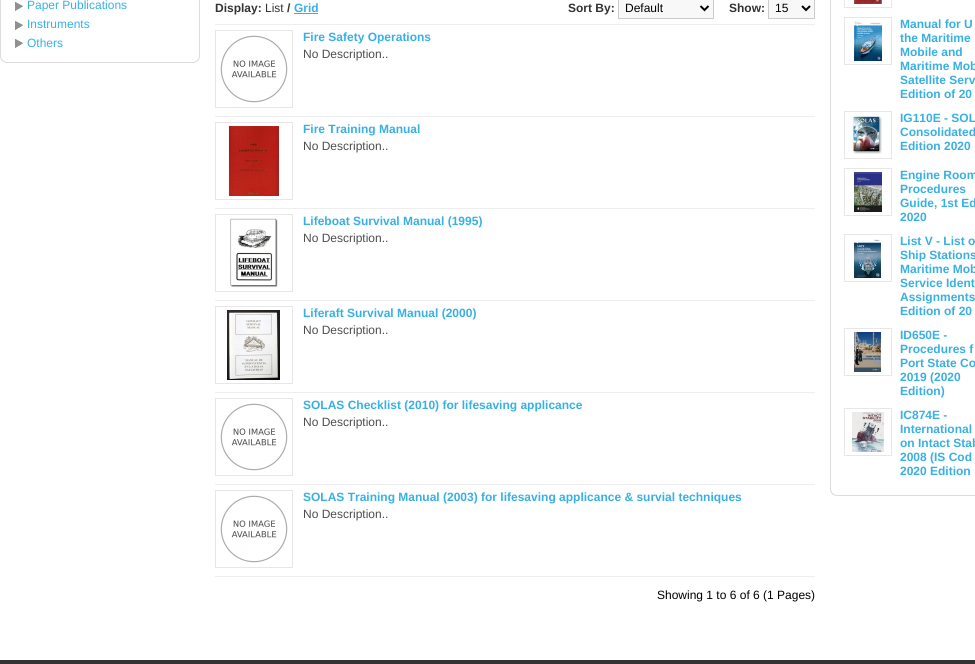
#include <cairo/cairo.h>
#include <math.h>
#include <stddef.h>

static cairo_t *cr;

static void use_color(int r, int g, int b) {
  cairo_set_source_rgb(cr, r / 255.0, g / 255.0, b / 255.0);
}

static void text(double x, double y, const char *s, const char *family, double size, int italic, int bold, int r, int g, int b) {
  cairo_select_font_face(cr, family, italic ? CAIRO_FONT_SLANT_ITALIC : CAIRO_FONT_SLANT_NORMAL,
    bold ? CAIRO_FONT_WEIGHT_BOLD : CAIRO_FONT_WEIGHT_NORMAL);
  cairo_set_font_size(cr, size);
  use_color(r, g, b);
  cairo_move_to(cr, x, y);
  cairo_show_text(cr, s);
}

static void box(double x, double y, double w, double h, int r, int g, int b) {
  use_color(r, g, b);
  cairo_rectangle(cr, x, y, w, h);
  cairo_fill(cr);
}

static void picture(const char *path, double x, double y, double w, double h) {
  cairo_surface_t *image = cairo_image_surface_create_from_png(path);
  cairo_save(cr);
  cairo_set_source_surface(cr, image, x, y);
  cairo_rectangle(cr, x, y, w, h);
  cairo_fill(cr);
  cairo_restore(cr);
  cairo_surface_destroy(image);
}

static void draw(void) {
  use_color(255, 255, 255);
  cairo_paint(cr);
  use_color(219, 222, 225);
  cairo_set_fill_rule(cr, CAIRO_FILL_RULE_EVEN_ODD);
  cairo_new_path(cr);
  cairo_move_to(cr, 0, -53);
  cairo_line_to(cr, 200, -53);
  cairo_line_to(cr, 200, 56);
  cairo_curve_to(cr, 200, 60, 197, 63, 193, 63);
  cairo_line_to(cr, 7, 63);
  cairo_curve_to(cr, 3, 63, 0, 60, 0, 56);
  cairo_close_path(cr);
  cairo_move_to(cr, 1, -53);
  cairo_line_to(cr, 199, -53);
  cairo_line_to(cr, 199, 56);
  cairo_curve_to(cr, 199, 59, 196, 62, 193, 62);
  cairo_line_to(cr, 7, 62);
  cairo_curve_to(cr, 4, 62, 1, 59, 1, 56);
  cairo_close_path(cr);
  cairo_fill(cr);
  picture("img_01.png", 15, 2, 8, 9);
  picture("img_01.png", 15, 21, 8, 9);
  picture("img_02.png", 15, 39, 8, 9);
  box(215, 24, 600, 1, 238, 238, 238);
  box(294, 13, 24, 1, 56, 176, 227);
  use_color(248, 248, 248);
  cairo_rectangle(cr, 618.5, -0.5, 95, 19);
  cairo_fill_preserve(cr);
  use_color(204, 204, 204);
  cairo_set_line_width(cr, 1);
  cairo_stroke(cr);
  cairo_new_path(cr);
  cairo_move_to(cr, 700.5, 6);
  cairo_line_to(cr, 704.5, 10);
  cairo_line_to(cr, 708.5, 6);
  use_color(0, 0, 0);
  cairo_set_line_width(cr, 2);
  cairo_stroke(cr);
  use_color(248, 248, 248);
  cairo_rectangle(cr, 768.5, -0.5, 46, 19);
  cairo_fill_preserve(cr);
  use_color(204, 204, 204);
  cairo_set_line_width(cr, 1);
  cairo_stroke(cr);
  cairo_new_path(cr);
  cairo_move_to(cr, 802, 6);
  cairo_line_to(cr, 806, 10);
  cairo_line_to(cr, 810, 6);
  use_color(0, 0, 0);
  cairo_set_line_width(cr, 2);
  cairo_stroke(cr);
  cairo_rectangle(cr, 215.5, 30.5, 77, 77);
  use_color(231, 231, 231);
  cairo_set_line_width(cr, 1);
  cairo_stroke(cr);
  picture("img_03.png", 220, 35, 68, 68);
  box(215, 116, 600, 1, 238, 238, 238);
  cairo_rectangle(cr, 215.5, 122.5, 77, 77);
  use_color(231, 231, 231);
  cairo_stroke(cr);
  picture("img_04.png", 228, 126, 52, 70);
  box(215, 208, 600, 1, 238, 238, 238);
  cairo_rectangle(cr, 215.5, 214.5, 77, 77);
  use_color(231, 231, 231);
  cairo_stroke(cr);
  picture("img_05.png", 230, 218, 48, 70);
  box(215, 300, 600, 1, 238, 238, 238);
  cairo_rectangle(cr, 215.5, 306.5, 77, 77);
  use_color(231, 231, 231);
  cairo_stroke(cr);
  picture("img_06.png", 227, 310, 53, 70);
  box(215, 392, 600, 1, 238, 238, 238);
  cairo_rectangle(cr, 215.5, 398.5, 77, 77);
  use_color(231, 231, 231);
  cairo_stroke(cr);
  picture("img_03.png", 220, 403, 68, 68);
  box(215, 484, 600, 1, 238, 238, 238);
  cairo_rectangle(cr, 215.5, 490.5, 77, 77);
  use_color(231, 231, 231);
  cairo_stroke(cr);
  picture("img_03.png", 220, 495, 68, 68);
  box(215, 576, 600, 1, 238, 238, 238);
  use_color(219, 222, 225);
  cairo_new_path(cr);
  cairo_move_to(cr, 830, -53);
  cairo_line_to(cr, 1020, -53);
  cairo_line_to(cr, 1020, 489);
  cairo_curve_to(cr, 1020, 493, 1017, 496, 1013, 496);
  cairo_line_to(cr, 837, 496);
  cairo_curve_to(cr, 833, 496, 830, 493, 830, 489);
  cairo_close_path(cr);
  cairo_move_to(cr, 831, -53);
  cairo_line_to(cr, 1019, -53);
  cairo_line_to(cr, 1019, 489);
  cairo_curve_to(cr, 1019, 492, 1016, 495, 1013, 495);
  cairo_line_to(cr, 837, 495);
  cairo_curve_to(cr, 834, 495, 831, 492, 831, 489);
  cairo_close_path(cr);
  cairo_fill(cr);
  cairo_rectangle(cr, 844.5, -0.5, 47, 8);
  use_color(231, 231, 231);
  cairo_stroke(cr);
  picture("img_07.png", 853, 0, 29, 4);
  cairo_rectangle(cr, 844.5, 17.5, 47, 47);
  cairo_stroke(cr);
  picture("img_08.png", 854, 21, 28, 40);
  cairo_rectangle(cr, 844.5, 111.5, 47, 47);
  cairo_stroke(cr);
  picture("img_09.png", 852, 115, 30, 39);
  cairo_rectangle(cr, 844.5, 168.5, 47, 47);
  cairo_stroke(cr);
  picture("img_10.png", 853, 172, 30, 40);
  cairo_rectangle(cr, 844.5, 234.5, 47, 47);
  cairo_stroke(cr);
  picture("img_11.png", 853, 239, 30, 39);
  cairo_rectangle(cr, 844.5, 328.5, 47, 47);
  cairo_stroke(cr);
  picture("img_12.png", 853, 332, 30, 40);
  cairo_rectangle(cr, 844.5, 408.5, 47, 47);
  cairo_stroke(cr);
  picture("img_13.png", 851, 412, 34, 40);
  box(0, 660, 975, 4, 51, 51, 51);
  text(27, 9, "Paper Publications", "Liberation Sans", 12, 0, 0, 56, 176, 227);
  text(27, 28, "Instruments", "Liberation Sans", 12, 0, 0, 56, 176, 227);
  text(27, 47, "Others", "Liberation Sans", 12, 0, 0, 56, 176, 227);
  text(215, 12, "Display:", "Liberation Sans", 12, 0, 1, 51, 51, 51);
  text(265, 12, "List", "Liberation Sans", 12, 0, 0, 51, 51, 51);
  text(287, 12, "/", "Liberation Sans", 12, 0, 1, 51, 51, 51);
  text(294, 12, "Grid", "Liberation Sans", 12, 0, 1, 56, 176, 227);
  text(568, 12, "Sort By:", "Liberation Sans", 12, 0, 1, 51, 51, 51);
  text(625, 12, "Default", "Liberation Sans", 12, 0, 0, 0, 0, 0);
  text(729, 12, "Show:", "Liberation Sans", 12, 0, 1, 51, 51, 51);
  text(775, 12, "15", "Liberation Sans", 12, 0, 0, 0, 0, 0);
  text(303, 41, "Fire Safety Operations", "Liberation Sans", 12, 0, 1, 56, 176, 227);
  text(303, 58, "No Description..", "Liberation Sans", 12, 0, 0, 77, 77, 77);
  text(303, 133, "Fire Training Manual", "Liberation Sans", 12, 0, 1, 56, 176, 227);
  text(303, 150, "No Description..", "Liberation Sans", 12, 0, 0, 77, 77, 77);
  text(303, 225, "Lifeboat Survival Manual (1995)", "Liberation Sans", 12, 0, 1, 56, 176, 227);
  text(303, 242, "No Description..", "Liberation Sans", 12, 0, 0, 77, 77, 77);
  text(303, 317, "Liferaft Survival Manual (2000)", "Liberation Sans", 12, 0, 1, 56, 176, 227);
  text(303, 334, "No Description..", "Liberation Sans", 12, 0, 0, 77, 77, 77);
  text(303, 409, "SOLAS Checklist (2010) for lifesaving applicance", "Liberation Sans", 12, 0, 1, 56, 176, 227);
  text(303, 426, "No Description..", "Liberation Sans", 12, 0, 0, 77, 77, 77);
  text(303, 501, "SOLAS Training Manual (2003) for lifesaving applicance & survial techniques", "Liberation Sans", 12, 0, 1, 56, 176, 227);
  text(303, 518, "No Description..", "Liberation Sans", 12, 0, 0, 77, 77, 77);
  text(657, 599, "Showing 1 to 6 of 6 (1 Pages)", "Liberation Sans", 12, 0, 0, 0, 0, 0);
  text(900, 28, "Manual for U", "Liberation Sans", 12, 0, 1, 56, 176, 227);
  text(900, 42, "the Maritime", "Liberation Sans", 12, 0, 1, 56, 176, 227);
  text(900, 56, "Mobile and", "Liberation Sans", 12, 0, 1, 56, 176, 227);
  text(900, 70, "Maritime Mob", "Liberation Sans", 12, 0, 1, 56, 176, 227);
  text(900, 84, "Satellite Serv", "Liberation Sans", 12, 0, 1, 56, 176, 227);
  text(900, 98, "Edition of 20", "Liberation Sans", 12, 0, 1, 56, 176, 227);
  text(900, 122, "IG110E - SOL", "Liberation Sans", 12, 0, 1, 56, 176, 227);
  text(900, 136, "Consolidated", "Liberation Sans", 12, 0, 1, 56, 176, 227);
  text(900, 150, "Edition 2020", "Liberation Sans", 12, 0, 1, 56, 176, 227);
  text(900, 179, "Engine Room", "Liberation Sans", 12, 0, 1, 56, 176, 227);
  text(900, 193, "Procedures", "Liberation Sans", 12, 0, 1, 56, 176, 227);
  text(900, 207, "Guide, 1st Ed", "Liberation Sans", 12, 0, 1, 56, 176, 227);
  text(900, 221, "2020", "Liberation Sans", 12, 0, 1, 56, 176, 227);
  text(900, 245, "List V - List o", "Liberation Sans", 12, 0, 1, 56, 176, 227);
  text(900, 259, "Ship Stations", "Liberation Sans", 12, 0, 1, 56, 176, 227);
  text(900, 273, "Maritime Mob", "Liberation Sans", 12, 0, 1, 56, 176, 227);
  text(900, 287, "Service Ident", "Liberation Sans", 12, 0, 1, 56, 176, 227);
  text(900, 301, "Assignments", "Liberation Sans", 12, 0, 1, 56, 176, 227);
  text(900, 315, "Edition of 20", "Liberation Sans", 12, 0, 1, 56, 176, 227);
  text(900, 339, "ID650E -", "Liberation Sans", 12, 0, 1, 56, 176, 227);
  text(900, 353, "Procedures f", "Liberation Sans", 12, 0, 1, 56, 176, 227);
  text(900, 367, "Port State Co", "Liberation Sans", 12, 0, 1, 56, 176, 227);
  text(900, 381, "2019 (2020", "Liberation Sans", 12, 0, 1, 56, 176, 227);
  text(900, 395, "Edition)", "Liberation Sans", 12, 0, 1, 56, 176, 227);
  text(900, 419, "IC874E -", "Liberation Sans", 12, 0, 1, 56, 176, 227);
  text(900, 433, "International", "Liberation Sans", 12, 0, 1, 56, 176, 227);
  text(900, 447, "on Intact Stab", "Liberation Sans", 12, 0, 1, 56, 176, 227);
  text(900, 461, "2008 (IS Cod", "Liberation Sans", 12, 0, 1, 56, 176, 227);
  text(900, 475, "2020 Edition", "Liberation Sans", 12, 0, 1, 56, 176, 227);
}

int main(void) {
  cairo_surface_t *surface = cairo_image_surface_create(CAIRO_FORMAT_RGB24, 975, 664);
  cr = cairo_create(surface);
  cairo_font_options_t *options = cairo_font_options_create();
  cairo_font_options_set_hint_metrics(options, CAIRO_HINT_METRICS_OFF);
  cairo_font_options_set_hint_style(options, CAIRO_HINT_STYLE_NONE);
  cairo_set_font_options(cr, options);
  cairo_set_miter_limit(cr, 4);
  draw();
  cairo_surface_write_to_png(surface, "out.png");
  cairo_font_options_destroy(options);
  cairo_destroy(cr);
  cairo_surface_destroy(surface);
  return 0;
}
